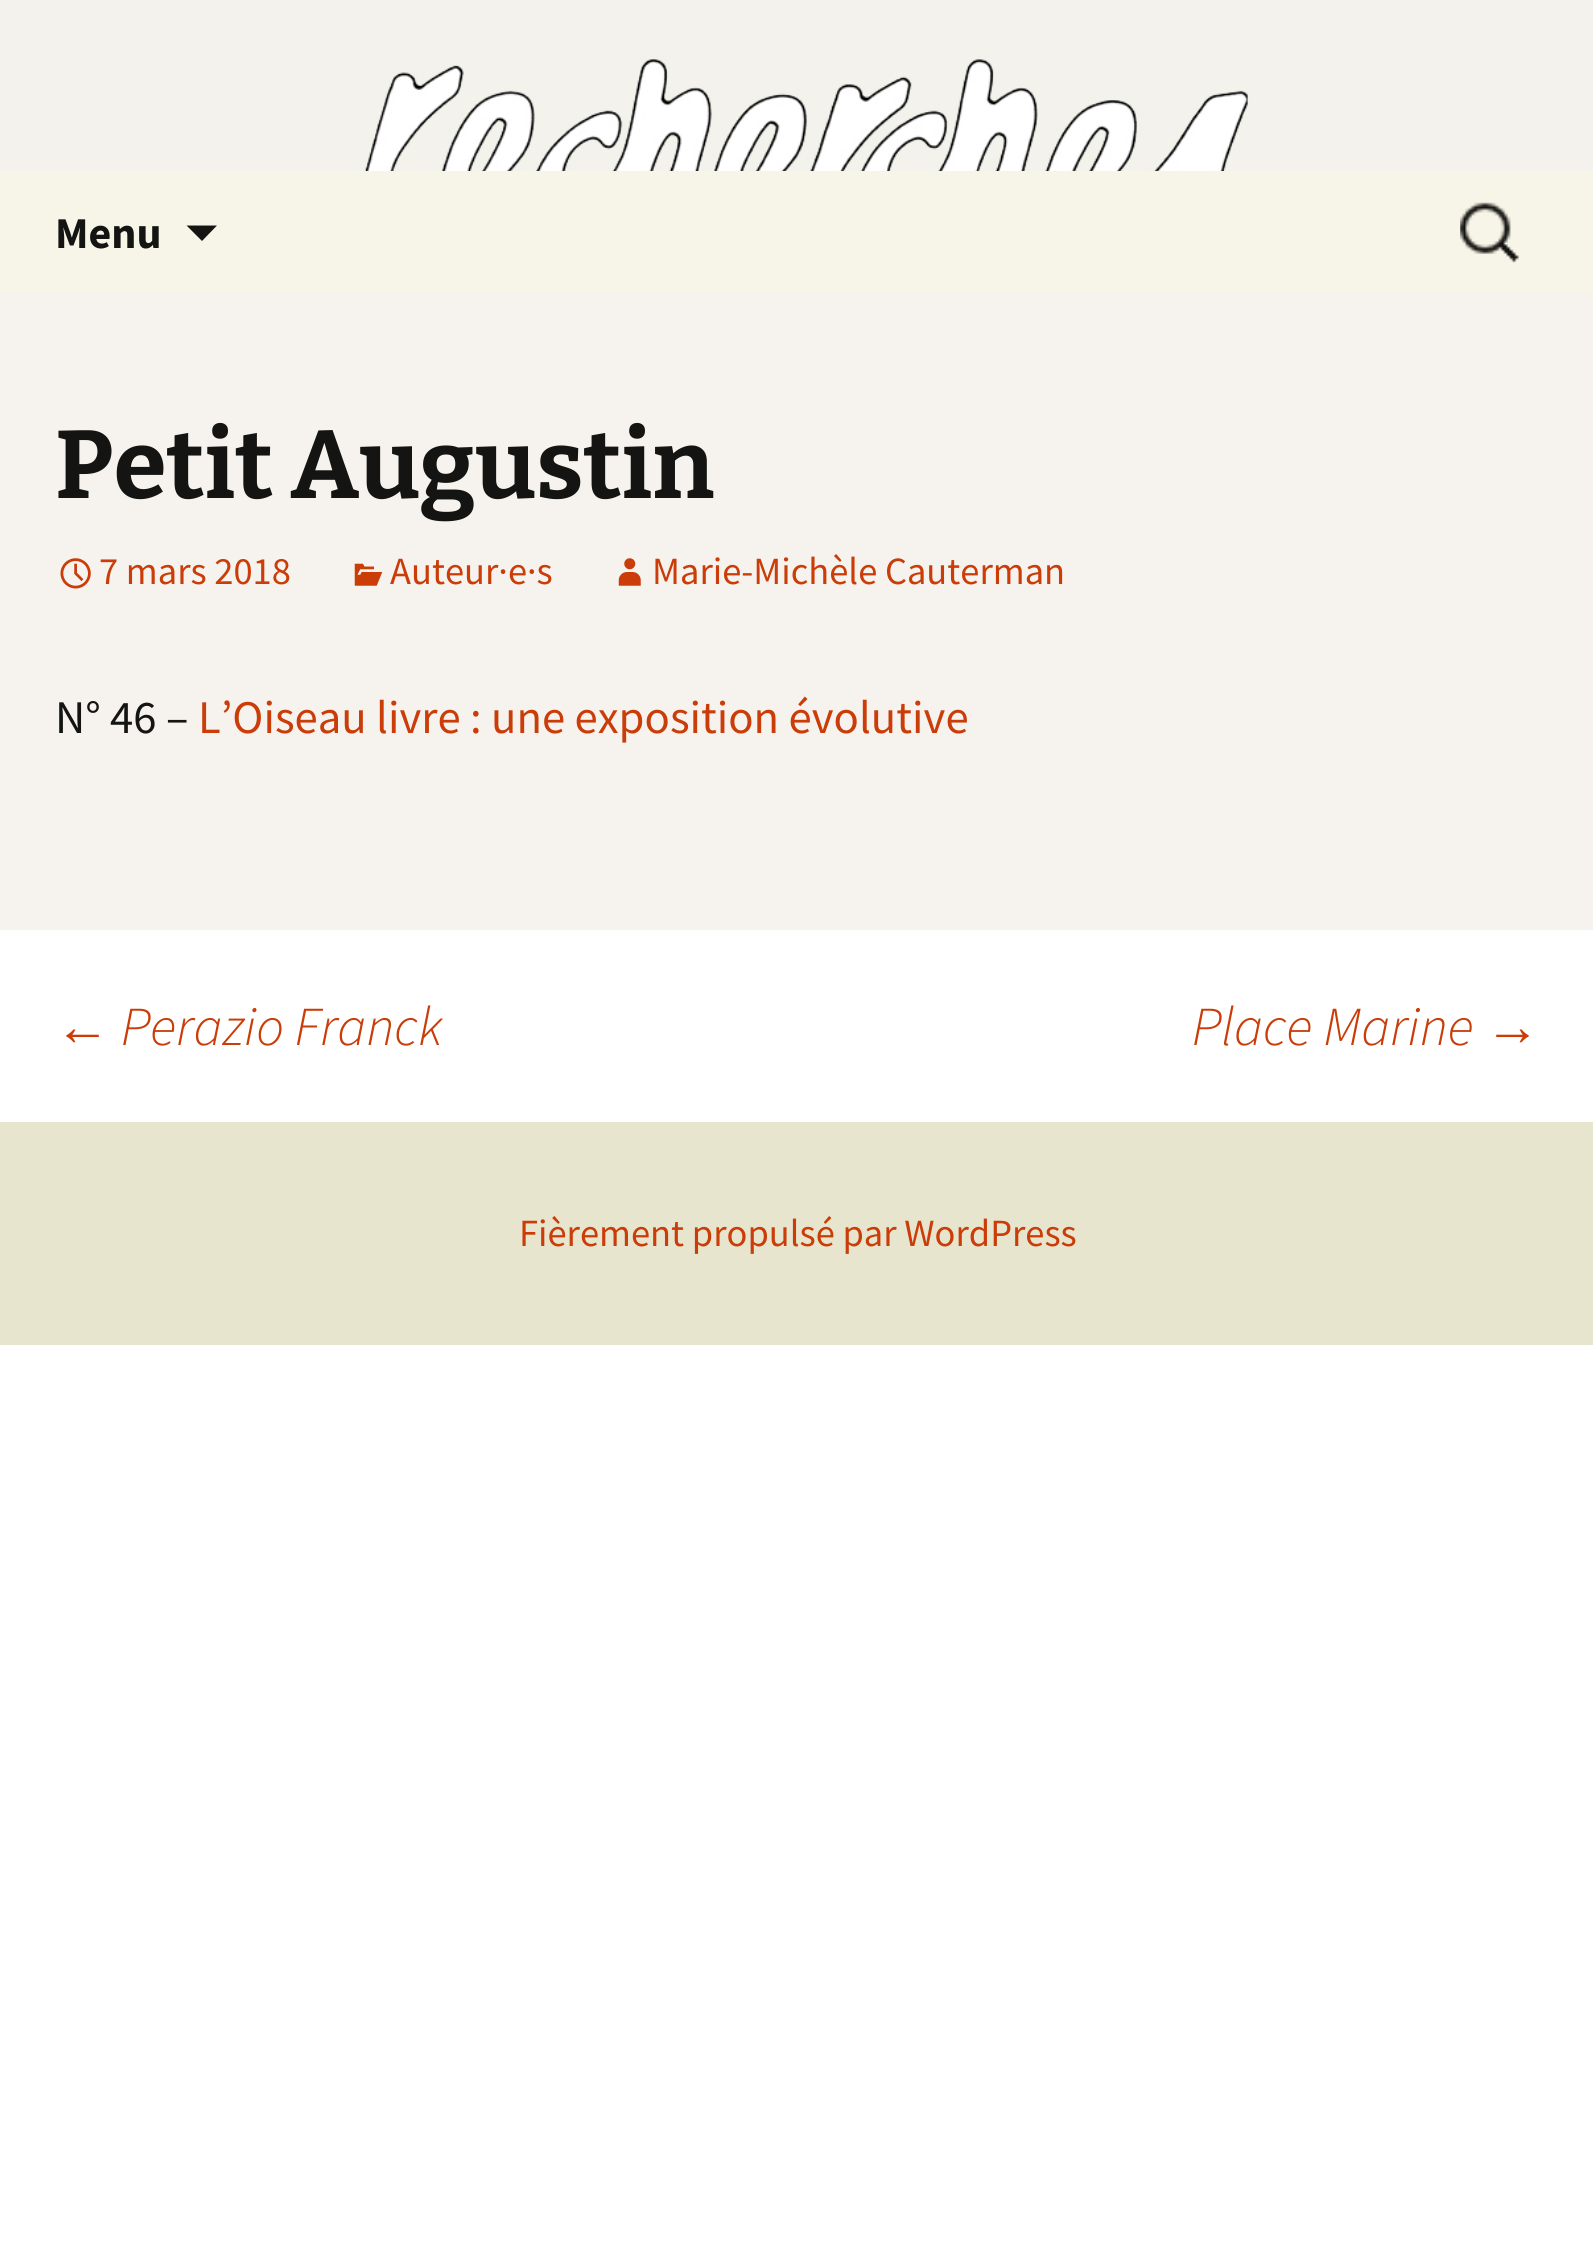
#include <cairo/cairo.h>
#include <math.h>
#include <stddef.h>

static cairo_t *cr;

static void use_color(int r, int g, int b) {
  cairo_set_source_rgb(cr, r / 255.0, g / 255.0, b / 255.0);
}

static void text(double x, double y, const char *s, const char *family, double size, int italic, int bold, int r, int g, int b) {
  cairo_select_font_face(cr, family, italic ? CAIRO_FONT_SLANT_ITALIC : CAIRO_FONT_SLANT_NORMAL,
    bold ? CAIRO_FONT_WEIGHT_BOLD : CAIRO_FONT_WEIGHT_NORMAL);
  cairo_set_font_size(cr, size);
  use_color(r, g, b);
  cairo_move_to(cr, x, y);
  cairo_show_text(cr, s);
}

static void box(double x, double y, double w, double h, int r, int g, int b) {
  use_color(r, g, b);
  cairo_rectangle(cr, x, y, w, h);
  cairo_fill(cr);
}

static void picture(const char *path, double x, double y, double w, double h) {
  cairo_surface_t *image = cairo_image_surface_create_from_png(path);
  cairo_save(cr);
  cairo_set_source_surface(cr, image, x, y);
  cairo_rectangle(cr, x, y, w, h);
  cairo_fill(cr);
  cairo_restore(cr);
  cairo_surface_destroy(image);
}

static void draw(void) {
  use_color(255, 255, 255);
  cairo_paint(cr);
  picture("img_01.png", 0, 0, 1593, 171);
  box(0, 171, 1593, 123, 247, 245, 231);
  use_color(20, 20, 18);
  cairo_new_path(cr);
  cairo_move_to(cr, 186.5, 225.5);
  cairo_line_to(cr, 202, 241);
  cairo_line_to(cr, 217, 225.5);
  cairo_close_path(cr);
  cairo_fill(cr);
  picture("img_02.png", 1460, 202, 59, 61);
  box(0, 294, 1593, 636, 246, 243, 238);
  picture("img_03.png", 60, 558, 31, 31);
  picture("img_04.png", 354, 563, 29, 23);
  picture("img_05.png", 618, 558, 23, 28);
  box(0, 1122, 1593, 223, 232, 229, 206);
  text(55, 248, "Menu", "Source Sans Pro", 44, 0, 1, 20, 20, 18);
  text(55, 498, "Petit Augustin", "Bitter", 96.25, 0, 1, 20, 20, 18);
  text(99, 584, "7 mars 2018", "Source Sans Pro", 38.5, 0, 0, 202, 60, 8);
  text(390, 584, "Auteur·e·s", "Source Sans Pro", 38.5, 0, 0, 202, 60, 8);
  text(652, 584, "Marie-Michèle Cauterman", "Source Sans Pro", 38.5, 0, 0, 202, 60, 8);
  text(55, 733, "N° 46 –", "Source Sans Pro", 46.75, 0, 0, 20, 20, 18);
  text(198, 733, "L’Oiseau livre : une exposition évolutive", "Source Sans Pro", 46.75, 0, 0, 202, 60, 8);
  text(55, 1045, "←", "Liberation Sans", 55, 1, 0, 202, 60, 8);
  text(121, 1045, "Perazio Franck", "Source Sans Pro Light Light", 55, 1, 0, 202, 60, 8);
  text(1192, 1045, "Place Marine", "Source Sans Pro Light Light", 55, 1, 0, 202, 60, 8);
  text(1485, 1045, "→", "Liberation Sans", 55, 1, 0, 202, 60, 8);
  text(519, 1246, "Fièrement propulsé par WordPress", "Source Sans Pro", 38.5, 0, 0, 202, 60, 8);
}

int main(void) {
  cairo_surface_t *surface = cairo_image_surface_create(CAIRO_FORMAT_RGB24, 1593, 2251);
  cr = cairo_create(surface);
  cairo_font_options_t *options = cairo_font_options_create();
  cairo_font_options_set_hint_metrics(options, CAIRO_HINT_METRICS_OFF);
  cairo_font_options_set_hint_style(options, CAIRO_HINT_STYLE_NONE);
  cairo_set_font_options(cr, options);
  cairo_set_miter_limit(cr, 4);
  draw();
  cairo_surface_write_to_png(surface, "out.png");
  cairo_font_options_destroy(options);
  cairo_destroy(cr);
  cairo_surface_destroy(surface);
  return 0;
}
